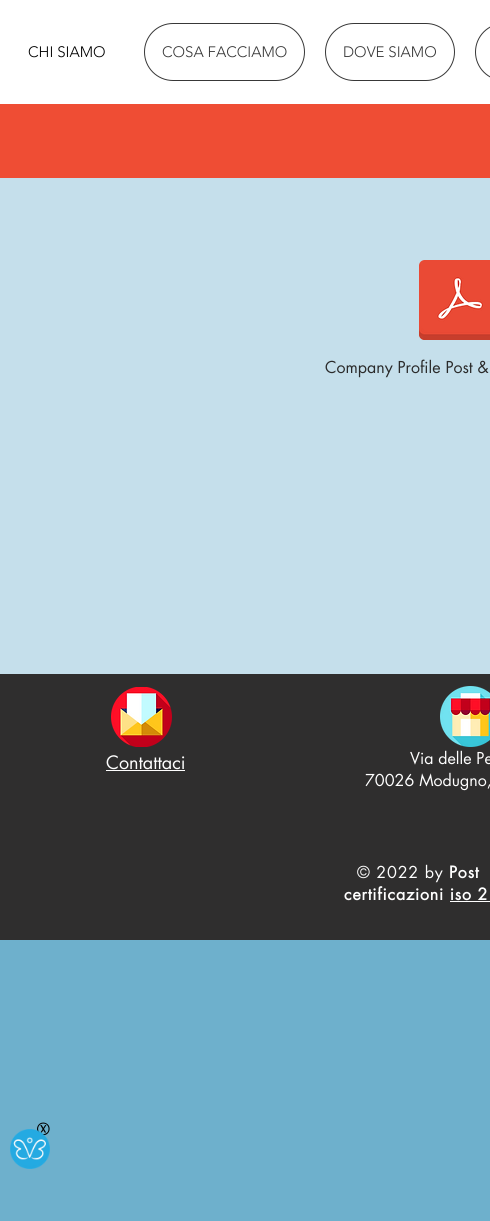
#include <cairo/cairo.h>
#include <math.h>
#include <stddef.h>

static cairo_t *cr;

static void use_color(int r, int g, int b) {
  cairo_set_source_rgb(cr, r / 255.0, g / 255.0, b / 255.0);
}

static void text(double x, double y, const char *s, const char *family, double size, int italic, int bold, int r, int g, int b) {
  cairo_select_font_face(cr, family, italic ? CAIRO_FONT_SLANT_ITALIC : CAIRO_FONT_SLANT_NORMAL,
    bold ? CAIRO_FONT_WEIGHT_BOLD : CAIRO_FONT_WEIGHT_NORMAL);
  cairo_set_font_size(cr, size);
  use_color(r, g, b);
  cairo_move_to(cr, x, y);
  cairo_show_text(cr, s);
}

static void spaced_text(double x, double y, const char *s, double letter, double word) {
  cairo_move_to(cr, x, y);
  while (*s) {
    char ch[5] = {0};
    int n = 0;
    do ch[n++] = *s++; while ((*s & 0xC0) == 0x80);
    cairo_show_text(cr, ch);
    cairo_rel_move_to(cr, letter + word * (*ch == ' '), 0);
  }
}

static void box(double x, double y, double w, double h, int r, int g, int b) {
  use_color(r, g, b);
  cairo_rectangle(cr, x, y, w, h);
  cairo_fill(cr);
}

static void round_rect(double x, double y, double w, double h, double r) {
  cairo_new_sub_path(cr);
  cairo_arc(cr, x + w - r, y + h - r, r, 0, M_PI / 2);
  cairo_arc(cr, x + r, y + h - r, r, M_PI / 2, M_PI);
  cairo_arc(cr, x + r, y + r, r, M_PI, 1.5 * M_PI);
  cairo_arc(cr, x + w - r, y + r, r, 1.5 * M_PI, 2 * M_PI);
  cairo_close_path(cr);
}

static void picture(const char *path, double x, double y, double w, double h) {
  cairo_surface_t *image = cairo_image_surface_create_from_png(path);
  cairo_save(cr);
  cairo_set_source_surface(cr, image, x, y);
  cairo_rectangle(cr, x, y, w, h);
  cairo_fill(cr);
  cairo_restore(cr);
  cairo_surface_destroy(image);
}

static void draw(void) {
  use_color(110, 176, 204);
  cairo_paint(cr);
  box(0, 0, 490, 104, 255, 255, 255);
  round_rect(144.5, 23.5, 160, 57, 28.5);
  use_color(56, 56, 56);
  cairo_set_line_width(cr, 1);
  cairo_stroke(cr);
  round_rect(325.5, 23.5, 129, 57, 28.5);
  cairo_stroke(cr);
  round_rect(475.5, 23.5, 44, 57, 28.5);
  cairo_stroke(cr);
  box(0, 104, 490, 74, 239, 77, 52);
  box(0, 178, 490, 496, 197, 223, 235);
  picture("img_01.png", 419, 260, 71, 80);
  box(0, 674, 490, 266, 47, 46, 46);
  picture("img_02.png", 111, 687, 61, 60);
  picture("img_03.png", 440, 686, 50, 61);
  box(106, 770, 79, 1, 255, 255, 255);
  box(450, 901, 40, 1, 255, 255, 255);
  text(28, 57, "CHI SIAMO", "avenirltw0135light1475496 Light", 15, 0, 0, 0, 0, 0);
  text(162, 57, "COSA FACCIAMO", "avenirltw0135light1475496 Light", 15, 0, 0, 56, 56, 56);
  text(343, 57, "DOVE SIAMO", "avenirltw0135light1475496 Light", 15, 0, 0, 56, 56, 56);
  text(325, 373, "Company Profile Post &", "futura", 16, 0, 0, 42, 42, 42);
  text(106, 769, "Contattaci", "futura", 18, 0, 0, 255, 255, 255);
  text(410, 764, "Via delle Pe", "futura", 16, 0, 0, 255, 255, 255);
  text(365, 786, "70026 Modugno,", "futura", 16, 0, 0, 255, 255, 255);
  spaced_text(357, 878, "© 2022 by", 0.8, 0);
  cairo_select_font_face(cr, "futura", CAIRO_FONT_SLANT_NORMAL, CAIRO_FONT_WEIGHT_BOLD);
  spaced_text(449, 878, "Post", 0.8, 0);
  spaced_text(344, 900, "certificazioni iso 2", 0.8, 0);
  cairo_save(cr);
  cairo_translate(cr, 50, 1124);
  cairo_rotate(cr, 180 * M_PI / 180);
  text(0, 0, "Ⓧ", "WenQuanYi Zen Hei", 13, 0, 1, 0, 0, 0);
  cairo_restore(cr);
  picture("img_04.png", 10, 1129, 40, 40);
}

int main(void) {
  cairo_surface_t *surface = cairo_image_surface_create(CAIRO_FORMAT_RGB24, 490, 1221);
  cr = cairo_create(surface);
  cairo_font_options_t *options = cairo_font_options_create();
  cairo_font_options_set_hint_metrics(options, CAIRO_HINT_METRICS_OFF);
  cairo_font_options_set_hint_style(options, CAIRO_HINT_STYLE_NONE);
  cairo_set_font_options(cr, options);
  cairo_set_miter_limit(cr, 4);
  draw();
  cairo_surface_write_to_png(surface, "out.png");
  cairo_font_options_destroy(options);
  cairo_destroy(cr);
  cairo_surface_destroy(surface);
  return 0;
}
